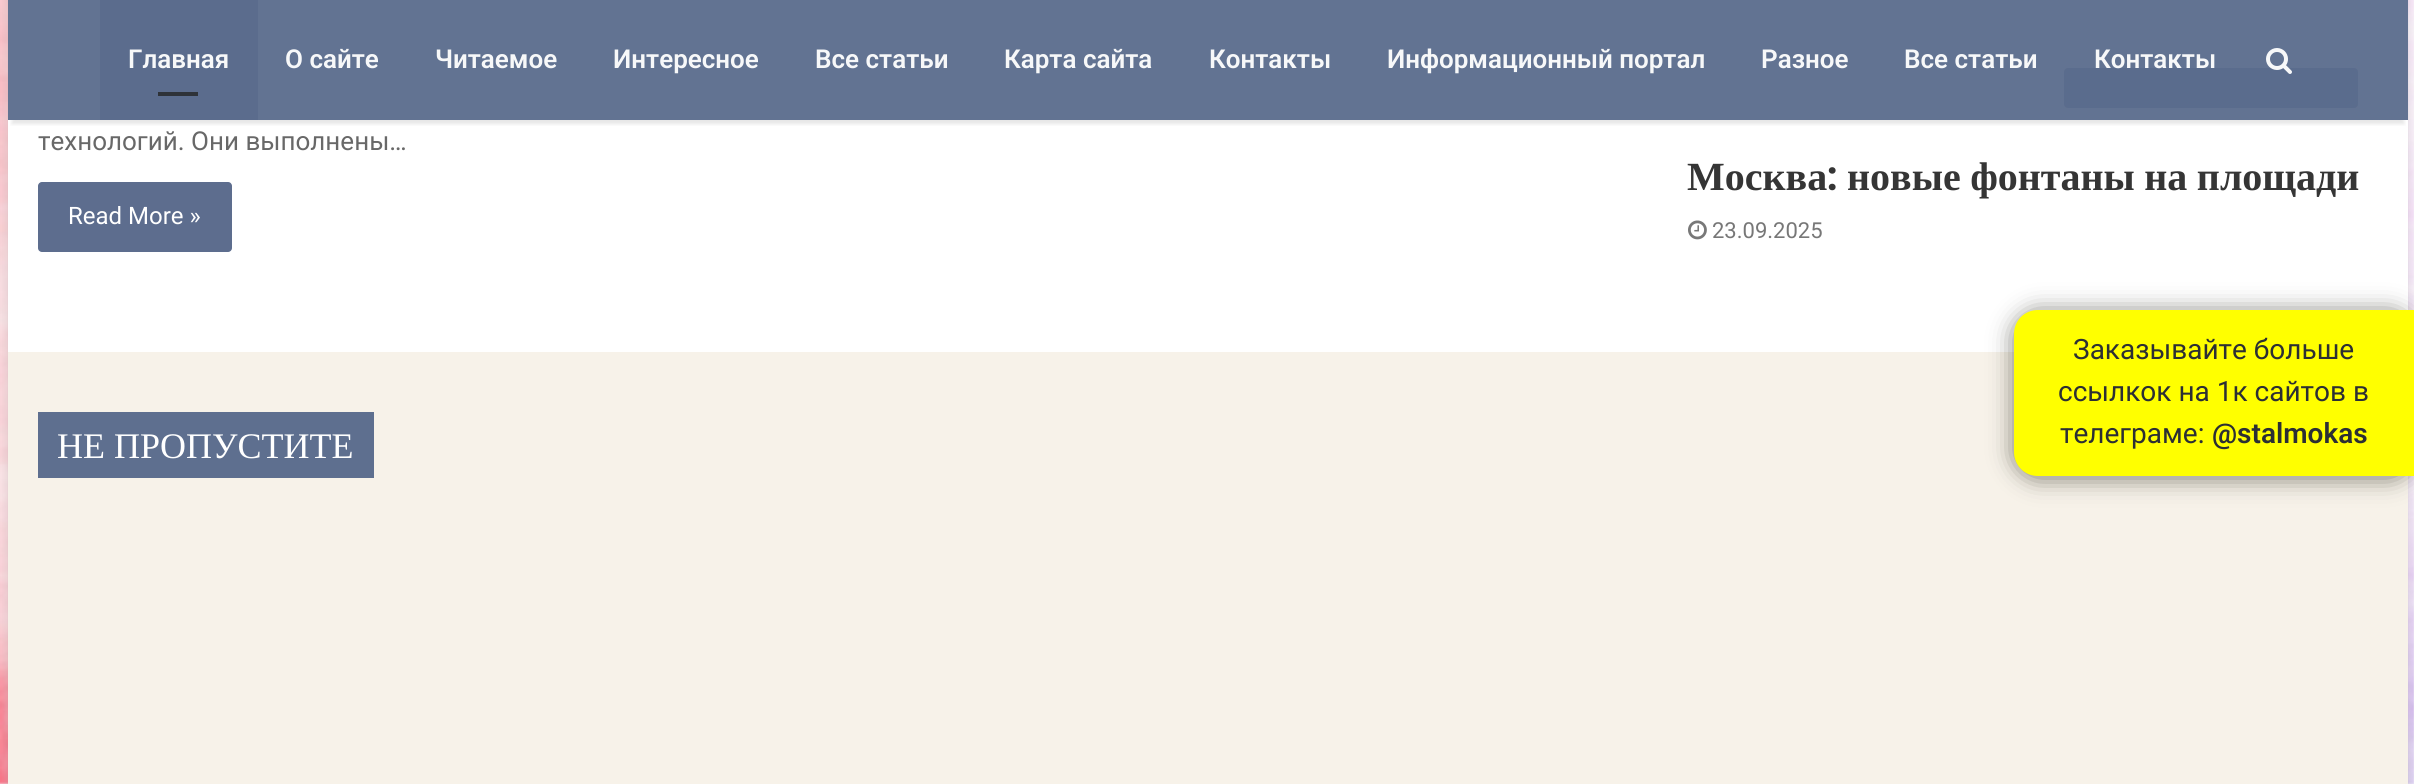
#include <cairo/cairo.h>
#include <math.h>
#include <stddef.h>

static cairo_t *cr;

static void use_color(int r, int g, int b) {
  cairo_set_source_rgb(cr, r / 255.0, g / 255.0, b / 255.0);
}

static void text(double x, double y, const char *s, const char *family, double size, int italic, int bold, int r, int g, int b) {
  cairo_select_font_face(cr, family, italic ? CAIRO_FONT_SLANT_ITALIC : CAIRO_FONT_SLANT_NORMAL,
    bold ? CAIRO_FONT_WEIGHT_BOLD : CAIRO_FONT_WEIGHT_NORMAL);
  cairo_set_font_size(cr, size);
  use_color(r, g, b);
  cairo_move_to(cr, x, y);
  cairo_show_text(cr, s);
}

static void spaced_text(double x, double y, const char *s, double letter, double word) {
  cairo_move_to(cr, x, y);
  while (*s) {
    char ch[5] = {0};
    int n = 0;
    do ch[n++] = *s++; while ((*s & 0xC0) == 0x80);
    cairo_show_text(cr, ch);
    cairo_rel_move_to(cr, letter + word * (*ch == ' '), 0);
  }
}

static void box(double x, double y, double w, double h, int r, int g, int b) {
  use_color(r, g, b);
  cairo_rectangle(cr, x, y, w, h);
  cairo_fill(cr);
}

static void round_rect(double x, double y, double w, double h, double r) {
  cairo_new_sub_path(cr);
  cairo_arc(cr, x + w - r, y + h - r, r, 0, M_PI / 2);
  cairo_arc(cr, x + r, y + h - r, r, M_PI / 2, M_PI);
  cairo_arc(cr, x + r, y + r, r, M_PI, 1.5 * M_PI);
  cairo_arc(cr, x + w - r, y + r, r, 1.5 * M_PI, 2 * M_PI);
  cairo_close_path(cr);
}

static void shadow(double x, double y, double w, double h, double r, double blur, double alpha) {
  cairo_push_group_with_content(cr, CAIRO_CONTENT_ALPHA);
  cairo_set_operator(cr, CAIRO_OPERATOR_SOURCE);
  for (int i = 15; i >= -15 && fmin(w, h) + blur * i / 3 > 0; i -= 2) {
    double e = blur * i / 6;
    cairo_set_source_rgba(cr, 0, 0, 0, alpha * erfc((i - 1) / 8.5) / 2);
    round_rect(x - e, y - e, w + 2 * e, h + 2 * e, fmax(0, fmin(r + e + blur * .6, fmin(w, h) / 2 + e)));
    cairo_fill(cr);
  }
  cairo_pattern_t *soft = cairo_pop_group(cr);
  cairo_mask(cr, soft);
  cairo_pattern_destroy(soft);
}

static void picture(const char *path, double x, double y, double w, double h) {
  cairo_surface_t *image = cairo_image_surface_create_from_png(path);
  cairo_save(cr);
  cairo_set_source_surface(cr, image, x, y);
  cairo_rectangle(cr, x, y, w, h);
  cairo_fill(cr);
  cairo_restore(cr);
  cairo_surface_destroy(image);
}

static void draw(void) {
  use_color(255, 255, 255);
  cairo_paint(cr);
  picture("img_01.png", 0, 0, 2414, 784);
  use_color(171, 171, 171);
  shadow(8, -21, 2400, 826, 0, 7, 0.5);
  box(8, 0, 2400, 352, 255, 255, 255);
  use_color(93, 109, 142);
  round_rect(2064, 68, 294, 40, 4);
  cairo_fill(cr);
  cairo_save(cr);
  cairo_rectangle(cr, 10, 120, 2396, 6);
  cairo_clip(cr);
  use_color(0, 0, 0);
  shadow(12, 12, 2392, 112, 0, 2, 0.1);
  cairo_restore(cr);
  cairo_set_source_rgba(cr, 0.357, 0.424, 0.553, 0.95);
  cairo_rectangle(cr, 8, 0, 2400, 120);
  cairo_fill(cr);
  cairo_rectangle(cr, 100, 0, 158, 120);
  cairo_fill(cr);
  box(158, 92, 40, 4, 46, 50, 56);
  picture("img_02.png", 2266, 48, 26, 26);
  use_color(93, 109, 142);
  round_rect(38, 182, 194, 70, 4);
  cairo_fill(cr);
  picture("img_03.png", 1688, 220, 19, 20);
  box(8, 352, 2400, 432, 247, 242, 233);
  box(38, 412, 336, 66, 94, 111, 143);
  use_color(20, 20, 10);
  shadow(2014, 312, 400, 166, 24, 12, 0.56);
  use_color(255, 255, 0);
  cairo_new_path(cr);
  cairo_move_to(cr, 2038, 310);
  cairo_line_to(cr, 2414, 310);
  cairo_line_to(cr, 2414, 476);
  cairo_line_to(cr, 2038, 476);
  cairo_curve_to(cr, 2024.5, 476, 2014, 465.5, 2014, 452);
  cairo_line_to(cr, 2014, 334);
  cairo_curve_to(cr, 2014, 320.5, 2024.5, 310, 2038, 310);
  cairo_close_path(cr);
  cairo_fill(cr);
  text(128, 68, "Главная", "Roboto SemiBold", 26, 0, 0, 247, 248, 249);
  text(285, 68, "О сайте", "Roboto SemiBold", 26, 0, 0, 247, 248, 249);
  text(435, 68, "Читаемое", "Roboto SemiBold", 26, 0, 0, 247, 248, 249);
  text(613, 68, "Интересное", "Roboto SemiBold", 26, 0, 0, 247, 248, 249);
  text(815, 68, "Все статьи", "Roboto SemiBold", 26, 0, 0, 247, 248, 249);
  text(1004, 68, "Карта сайта", "Roboto SemiBold", 26, 0, 0, 247, 248, 249);
  text(1209, 68, "Контакты", "Roboto SemiBold", 26, 0, 0, 247, 248, 249);
  text(1387, 68, "Информационный портал", "Roboto SemiBold", 26, 0, 0, 247, 248, 249);
  text(1761, 68, "Разное", "Roboto SemiBold", 26, 0, 0, 247, 248, 249);
  text(1904, 68, "Все статьи", "Roboto SemiBold", 26, 0, 0, 247, 248, 249);
  text(2094, 68, "Контакты", "Roboto SemiBold", 26, 0, 0, 247, 248, 249);
  text(38, 150, "технологий. Они выполнены…", "Roboto", 26, 0, 0, 104, 104, 104);
  text(68, 224, "Read More »", "Roboto", 24, 0, 0, 255, 255, 255);
  text(1687, 190, "Москва", "Liberation Serif", 40, 0, 1, 53, 53, 53);
  text(1827, 190, ":", "Poppins SemiBold", 40, 0, 0, 53, 53, 53);
  cairo_select_font_face(cr, "Liberation Serif", CAIRO_FONT_SLANT_NORMAL, CAIRO_FONT_WEIGHT_BOLD);
  spaced_text(1847, 190, "новые фонтаны на площади", 0, -0.5);
  text(1712, 238, "23.09.2025", "Roboto", 22, 0, 0, 119, 119, 119);
  text(57, 458, "НЕ ПРОПУСТИТЕ", "Liberation Serif", 36, 0, 0, 255, 255, 255);
  text(2073, 359, "Заказывайте больше", "Roboto", 28, 0, 0, 44, 47, 52);
  text(2058, 401, "ссылкок на 1к сайтов в", "Roboto", 28, 0, 0, 44, 47, 52);
  text(2060, 443, "телеграме:", "Roboto", 28, 0, 0, 44, 47, 52);
  text(2212, 443, "@stalmokas", "Roboto SemiBold", 28, 0, 0, 44, 47, 52);
}

int main(void) {
  cairo_surface_t *surface = cairo_image_surface_create(CAIRO_FORMAT_RGB24, 2414, 784);
  cr = cairo_create(surface);
  cairo_font_options_t *options = cairo_font_options_create();
  cairo_font_options_set_hint_metrics(options, CAIRO_HINT_METRICS_OFF);
  cairo_font_options_set_hint_style(options, CAIRO_HINT_STYLE_NONE);
  cairo_set_font_options(cr, options);
  cairo_set_miter_limit(cr, 4);
  draw();
  cairo_surface_write_to_png(surface, "out.png");
  cairo_font_options_destroy(options);
  cairo_destroy(cr);
  cairo_surface_destroy(surface);
  return 0;
}
